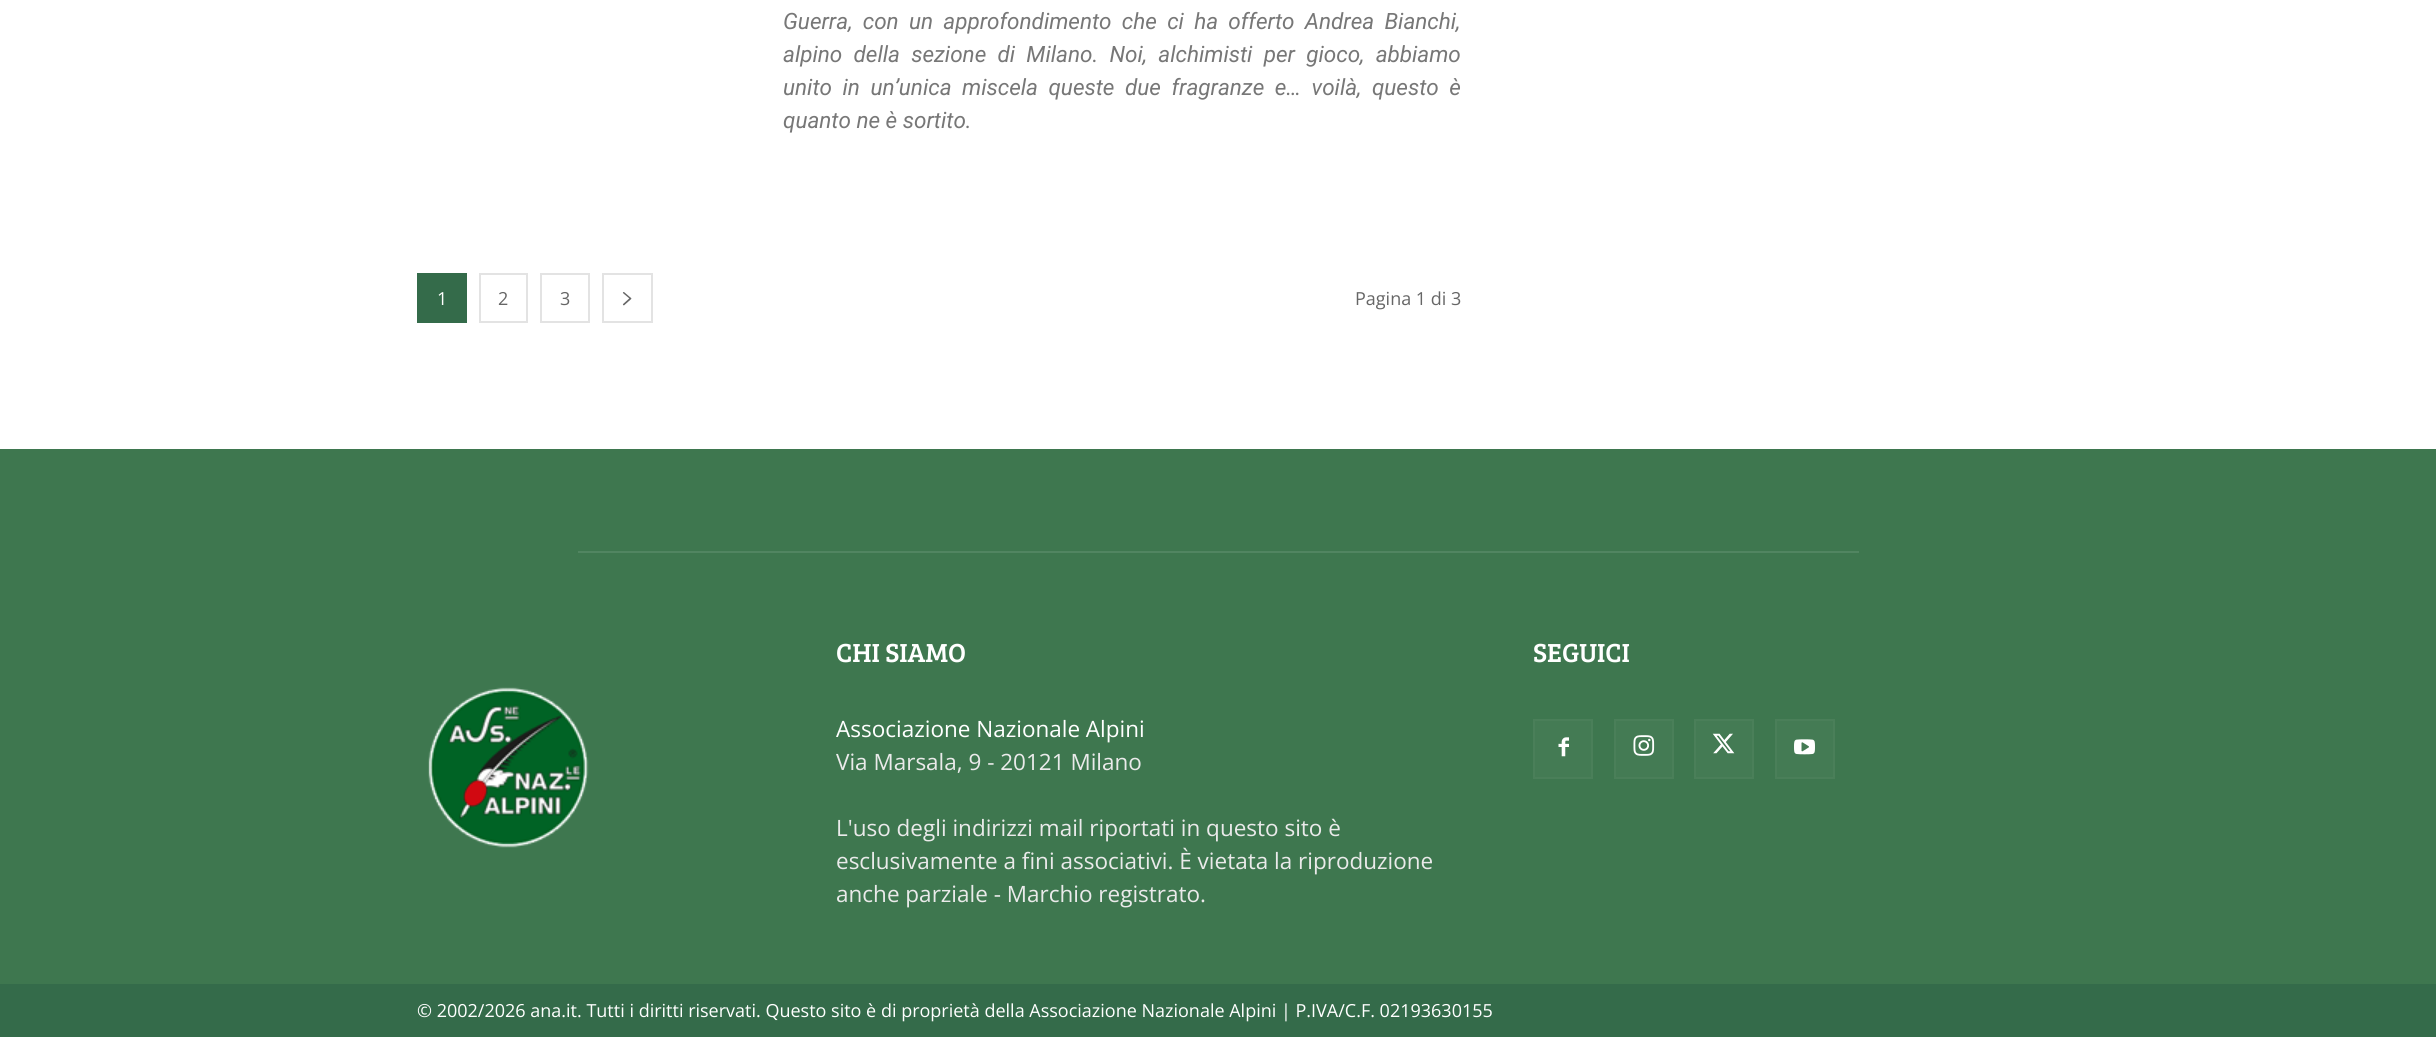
#include <cairo/cairo.h>
#include <math.h>
#include <stddef.h>

static cairo_t *cr;

static void use_color(int r, int g, int b) {
  cairo_set_source_rgb(cr, r / 255.0, g / 255.0, b / 255.0);
}

static void text(double x, double y, const char *s, const char *family, double size, int italic, int bold, int r, int g, int b) {
  cairo_select_font_face(cr, family, italic ? CAIRO_FONT_SLANT_ITALIC : CAIRO_FONT_SLANT_NORMAL,
    bold ? CAIRO_FONT_WEIGHT_BOLD : CAIRO_FONT_WEIGHT_NORMAL);
  cairo_set_font_size(cr, size);
  use_color(r, g, b);
  cairo_move_to(cr, x, y);
  cairo_show_text(cr, s);
}

static void spaced_text(double x, double y, const char *s, double letter, double word) {
  cairo_move_to(cr, x, y);
  while (*s) {
    char ch[5] = {0};
    int n = 0;
    do ch[n++] = *s++; while ((*s & 0xC0) == 0x80);
    cairo_show_text(cr, ch);
    cairo_rel_move_to(cr, letter + word * (*ch == ' '), 0);
  }
}

static void box(double x, double y, double w, double h, int r, int g, int b) {
  use_color(r, g, b);
  cairo_rectangle(cr, x, y, w, h);
  cairo_fill(cr);
}

static void picture(const char *path, double x, double y, double w, double h) {
  cairo_surface_t *image = cairo_image_surface_create_from_png(path);
  cairo_save(cr);
  cairo_set_source_surface(cr, image, x, y);
  cairo_rectangle(cr, x, y, w, h);
  cairo_fill(cr);
  cairo_restore(cr);
  cairo_surface_destroy(image);
}

static void draw(void) {
  use_color(255, 255, 255);
  cairo_paint(cr);
  box(417, 273, 50, 50, 52, 107, 74);
  cairo_rectangle(cr, 480, 274, 47, 48);
  use_color(227, 227, 227);
  cairo_stroke(cr);
  cairo_rectangle(cr, 541, 274, 48, 48);
  cairo_stroke(cr);
  cairo_rectangle(cr, 603, 274, 49, 48);
  cairo_stroke(cr);
  picture("img_01.png", 622, 292, 10, 14);
  box(0, 449, 2436, 535, 62, 119, 79);
  box(578, 551, 1281, 2, 81, 133, 97);
  box(1535, 721, 56, 56, 68, 123, 84);
  picture("img_02.png", 1558, 737, 11, 20);
  cairo_rectangle(cr, 1534, 720, 58, 58);
  use_color(74, 127, 89);
  cairo_stroke(cr);
  box(1616, 721, 56, 56, 68, 123, 84);
  picture("img_03.png", 1633, 735, 22, 21);
  cairo_rectangle(cr, 1615, 720, 58, 58);
  use_color(74, 127, 89);
  cairo_stroke(cr);
  box(1696, 721, 56, 56, 68, 123, 84);
  picture("img_04.png", 1712, 733, 23, 21);
  cairo_rectangle(cr, 1695, 720, 58, 58);
  use_color(74, 127, 89);
  cairo_stroke(cr);
  box(1777, 721, 56, 56, 68, 123, 84);
  picture("img_05.png", 1794, 739, 21, 16);
  cairo_rectangle(cr, 1776, 720, 58, 58);
  use_color(74, 127, 89);
  cairo_stroke(cr);
  picture("img_06.png", 428, 687, 161, 161);
  box(0, 984, 2436, 53, 52, 107, 74);
  cairo_select_font_face(cr, "Roboto", CAIRO_FONT_SLANT_ITALIC, CAIRO_FONT_WEIGHT_NORMAL);
  cairo_set_font_size(cr, 22.5);
  use_color(119, 119, 119);
  spaced_text(783, 29, "Guerra, con un approfondimento che ci ha offerto Andrea Bianchi,", 0, 4.75);
  spaced_text(783, 62, "alpino della sezione di Milano. Noi, alchimisti per gioco, abbiamo", 0, 5.75);
  spaced_text(783, 95, "unito in un’unica miscela queste due fragranze e… voilà, questo è", 0, 5);
  text(783, 128, "quanto ne è sortito.", "Roboto", 22.5, 1, 0, 119, 119, 119);
  text(437, 305, "1", "Open Sans", 18, 0, 0, 255, 255, 255);
  text(498, 305, "2", "Open Sans", 18, 0, 0, 102, 102, 102);
  text(560, 305, "3", "Open Sans", 18, 0, 0, 102, 102, 102);
  text(1355, 305, "Pagina 1 di 3", "Open Sans", 18, 0, 0, 102, 102, 102);
  text(836, 662, "CHI SIAMO", "Bree Serif", 27, 0, 0, 255, 255, 255);
  text(836, 737, "Associazione Nazionale Alpini", "Open Sans", 22.5, 0, 0, 255, 255, 255);
  text(836, 770, "Via Marsala, 9 - 20121 Milano", "Open Sans", 22.5, 0, 0, 234, 234, 234);
  text(836, 836, "L'uso degli indirizzi mail riportati in questo sito è", "Open Sans", 22.5, 0, 0, 234, 234, 234);
  text(836, 869, "esclusivamente a fini associativi. È vietata la riproduzione", "Open Sans", 22.5, 0, 0, 234, 234, 234);
  text(836, 902, "anche parziale - Marchio registrato.", "Open Sans", 22.5, 0, 0, 234, 234, 234);
  text(1533, 662, "SEGUICI", "Bree Serif", 27, 0, 0, 255, 255, 255);
  text(417, 1017, "© 2002/2026 ana.it. Tutti i diritti riservati. Questo sito è di proprietà della Associazione Nazionale Alpini | P.IVA/C.F. 02193630155", "Open Sans", 18, 0, 0, 255, 255, 255);
}

int main(void) {
  cairo_surface_t *surface = cairo_image_surface_create(CAIRO_FORMAT_RGB24, 2436, 1037);
  cr = cairo_create(surface);
  cairo_font_options_t *options = cairo_font_options_create();
  cairo_font_options_set_hint_metrics(options, CAIRO_HINT_METRICS_OFF);
  cairo_font_options_set_hint_style(options, CAIRO_HINT_STYLE_NONE);
  cairo_set_font_options(cr, options);
  cairo_set_miter_limit(cr, 4);
  draw();
  cairo_surface_write_to_png(surface, "out.png");
  cairo_font_options_destroy(options);
  cairo_destroy(cr);
  cairo_surface_destroy(surface);
  return 0;
}
